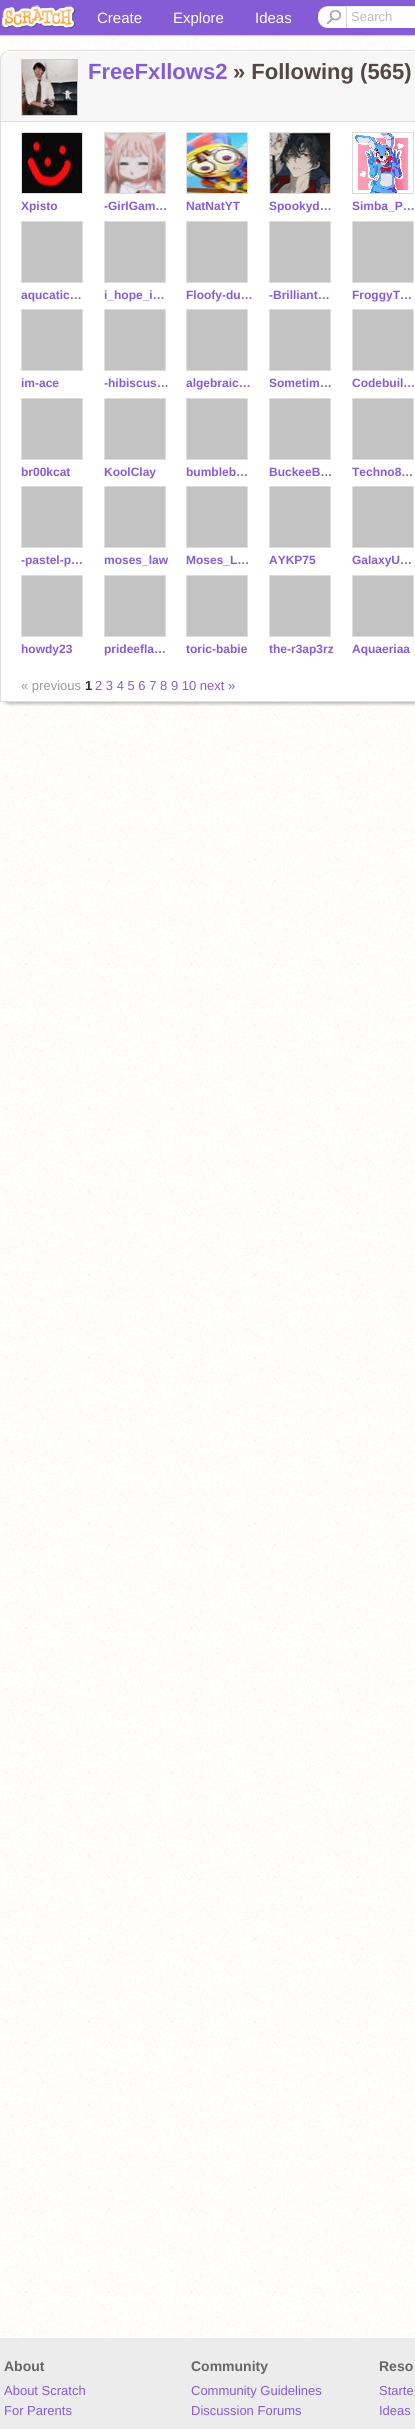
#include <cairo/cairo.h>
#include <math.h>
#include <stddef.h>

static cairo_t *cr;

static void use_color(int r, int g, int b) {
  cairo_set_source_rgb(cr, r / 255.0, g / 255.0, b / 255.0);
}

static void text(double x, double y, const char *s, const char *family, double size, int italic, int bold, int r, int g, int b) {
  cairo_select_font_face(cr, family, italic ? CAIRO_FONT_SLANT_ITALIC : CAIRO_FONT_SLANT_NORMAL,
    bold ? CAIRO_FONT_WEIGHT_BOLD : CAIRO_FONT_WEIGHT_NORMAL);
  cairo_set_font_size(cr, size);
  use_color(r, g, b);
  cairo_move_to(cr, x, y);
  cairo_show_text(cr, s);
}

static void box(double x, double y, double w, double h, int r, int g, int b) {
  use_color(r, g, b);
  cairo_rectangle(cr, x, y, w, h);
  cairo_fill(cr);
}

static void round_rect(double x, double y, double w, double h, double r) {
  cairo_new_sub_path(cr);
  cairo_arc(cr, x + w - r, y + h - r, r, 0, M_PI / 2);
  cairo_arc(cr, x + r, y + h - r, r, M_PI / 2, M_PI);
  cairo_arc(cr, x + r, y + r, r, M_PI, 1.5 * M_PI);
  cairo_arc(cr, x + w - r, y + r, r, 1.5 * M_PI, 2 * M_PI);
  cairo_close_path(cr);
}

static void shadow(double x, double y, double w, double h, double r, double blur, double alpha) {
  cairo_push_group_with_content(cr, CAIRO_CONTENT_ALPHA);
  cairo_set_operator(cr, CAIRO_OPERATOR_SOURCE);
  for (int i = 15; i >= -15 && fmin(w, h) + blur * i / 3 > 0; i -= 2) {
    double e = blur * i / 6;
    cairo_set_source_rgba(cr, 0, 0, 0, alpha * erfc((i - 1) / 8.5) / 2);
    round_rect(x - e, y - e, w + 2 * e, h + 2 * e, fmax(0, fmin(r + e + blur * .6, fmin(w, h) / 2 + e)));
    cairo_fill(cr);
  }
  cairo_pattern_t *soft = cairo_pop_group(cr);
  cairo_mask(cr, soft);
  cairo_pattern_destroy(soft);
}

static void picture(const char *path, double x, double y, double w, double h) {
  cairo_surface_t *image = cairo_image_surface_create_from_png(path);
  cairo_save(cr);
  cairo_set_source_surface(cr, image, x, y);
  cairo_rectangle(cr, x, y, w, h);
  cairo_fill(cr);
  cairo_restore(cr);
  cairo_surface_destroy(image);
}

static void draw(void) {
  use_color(255, 255, 255);
  cairo_paint(cr);
  picture("img_01.png", 0, 35, 415, 2303);
  use_color(204, 204, 204);
  shadow(0, 1, 415, 35, 0, 0.5, 1);
  box(0, 0, 415, 35, 133, 92, 214);
  picture("img_02.png", 2, 5, 74, 25);
  use_color(255, 255, 255);
  round_rect(318, 6, 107, 22, 10);
  cairo_fill(cr);
  cairo_set_source_rgba(cr, 0, 0, 0, 0.07);
  cairo_new_path(cr);
  cairo_move_to(cr, 328, 7);
  cairo_line_to(cr, 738, 7);
  cairo_curve_to(cr, 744, 7, 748, 11, 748, 17);
  cairo_line_to(cr, 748, 16);
  cairo_curve_to(cr, 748, 10, 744, 6, 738, 6);
  cairo_line_to(cr, 328, 6);
  cairo_curve_to(cr, 322, 6, 318, 10, 318, 16);
  cairo_line_to(cr, 318, 17);
  cairo_curve_to(cr, 318, 11, 322, 7, 328, 7);
  cairo_close_path(cr);
  cairo_fill(cr);
  picture("img_03.png", 327, 10, 14, 14);
  cairo_set_source_rgba(cr, 0, 0, 0, 0.06);
  cairo_rectangle(cr, 318, 6, 28, 1);
  cairo_fill(cr);
  cairo_set_source_rgba(cr, 0.8, 0.8, 0.8, 0.8);
  cairo_rectangle(cr, 346, 6, 1, 22);
  cairo_fill(cr);
  use_color(34, 25, 25);
  shadow(0, 52, 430, 652, 10, 1.5, 0.3);
  use_color(247, 247, 247);
  cairo_new_path(cr);
  cairo_move_to(cr, 10, 50.5);
  cairo_line_to(cr, 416, 50.5);
  cairo_curve_to(cr, 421, 50.5, 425.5, 55, 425.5, 60);
  cairo_line_to(cr, 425.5, 701.5);
  cairo_line_to(cr, 0.5, 701.5);
  cairo_line_to(cr, 0.5, 60);
  cairo_curve_to(cr, 0.5, 55, 5, 50.5, 10, 50.5);
  cairo_close_path(cr);
  cairo_fill_preserve(cr);
  use_color(224, 224, 224);
  cairo_set_line_width(cr, 1);
  cairo_stroke(cr);
  box(6, 51, 409, 1, 255, 255, 255);
  cairo_rectangle(cr, 21.5, 59.5, 56, 56);
  use_color(204, 204, 204);
  cairo_stroke(cr);
  picture("img_04.png", 22, 60, 55, 55);
  box(1, 122, 414, 579, 255, 255, 255);
  box(1, 121, 414, 1, 224, 224, 224);
  cairo_rectangle(cr, 21.5, 132.5, 61, 61);
  use_color(221, 221, 221);
  cairo_stroke(cr);
  picture("img_05.png", 22, 133, 60, 60);
  cairo_rectangle(cr, 104.5, 132.5, 61, 61);
  cairo_stroke(cr);
  picture("img_06.png", 105, 133, 60, 60);
  cairo_rectangle(cr, 186.5, 132.5, 61, 61);
  cairo_stroke(cr);
  picture("img_07.png", 187, 133, 60, 60);
  cairo_rectangle(cr, 269.5, 132.5, 61, 61);
  cairo_stroke(cr);
  picture("img_08.png", 270, 133, 60, 60);
  cairo_rectangle(cr, 352.5, 132.5, 61, 61);
  cairo_stroke(cr);
  picture("img_09.png", 355, 133, 54, 60);
  cairo_rectangle(cr, 21.5, 221.5, 61, 61);
  cairo_stroke(cr);
  box(22, 222, 60, 60, 195, 195, 195);
  cairo_rectangle(cr, 104.5, 221.5, 61, 61);
  use_color(221, 221, 221);
  cairo_stroke(cr);
  box(105, 222, 60, 60, 195, 195, 195);
  cairo_rectangle(cr, 186.5, 221.5, 61, 61);
  use_color(221, 221, 221);
  cairo_stroke(cr);
  box(187, 222, 60, 60, 195, 195, 195);
  cairo_rectangle(cr, 269.5, 221.5, 61, 61);
  use_color(221, 221, 221);
  cairo_stroke(cr);
  box(270, 222, 60, 60, 195, 195, 195);
  cairo_rectangle(cr, 352.5, 221.5, 61, 61);
  use_color(221, 221, 221);
  cairo_stroke(cr);
  box(353, 222, 60, 60, 195, 195, 195);
  cairo_rectangle(cr, 21.5, 309.5, 61, 61);
  use_color(221, 221, 221);
  cairo_stroke(cr);
  box(22, 310, 60, 60, 195, 195, 195);
  cairo_rectangle(cr, 104.5, 309.5, 61, 61);
  use_color(221, 221, 221);
  cairo_stroke(cr);
  box(105, 310, 60, 60, 195, 195, 195);
  cairo_rectangle(cr, 186.5, 309.5, 61, 61);
  use_color(221, 221, 221);
  cairo_stroke(cr);
  box(187, 310, 60, 60, 195, 195, 195);
  cairo_rectangle(cr, 269.5, 309.5, 61, 61);
  use_color(221, 221, 221);
  cairo_stroke(cr);
  box(270, 310, 60, 60, 195, 195, 195);
  cairo_rectangle(cr, 352.5, 309.5, 61, 61);
  use_color(221, 221, 221);
  cairo_stroke(cr);
  box(353, 310, 60, 60, 195, 195, 195);
  cairo_rectangle(cr, 21.5, 398.5, 61, 61);
  use_color(221, 221, 221);
  cairo_stroke(cr);
  box(22, 399, 60, 60, 195, 195, 195);
  cairo_rectangle(cr, 104.5, 398.5, 61, 61);
  use_color(221, 221, 221);
  cairo_stroke(cr);
  box(105, 399, 60, 60, 195, 195, 195);
  cairo_rectangle(cr, 186.5, 398.5, 61, 61);
  use_color(221, 221, 221);
  cairo_stroke(cr);
  box(187, 399, 60, 60, 195, 195, 195);
  cairo_rectangle(cr, 269.5, 398.5, 61, 61);
  use_color(221, 221, 221);
  cairo_stroke(cr);
  box(270, 399, 60, 60, 195, 195, 195);
  cairo_rectangle(cr, 352.5, 398.5, 61, 61);
  use_color(221, 221, 221);
  cairo_stroke(cr);
  box(353, 399, 60, 60, 195, 195, 195);
  cairo_rectangle(cr, 21.5, 486.5, 61, 61);
  use_color(221, 221, 221);
  cairo_stroke(cr);
  box(22, 487, 60, 60, 195, 195, 195);
  cairo_rectangle(cr, 104.5, 486.5, 61, 61);
  use_color(221, 221, 221);
  cairo_stroke(cr);
  box(105, 487, 60, 60, 195, 195, 195);
  cairo_rectangle(cr, 186.5, 486.5, 61, 61);
  use_color(221, 221, 221);
  cairo_stroke(cr);
  box(187, 487, 60, 60, 195, 195, 195);
  cairo_rectangle(cr, 269.5, 486.5, 61, 61);
  use_color(221, 221, 221);
  cairo_stroke(cr);
  box(270, 487, 60, 60, 195, 195, 195);
  cairo_rectangle(cr, 352.5, 486.5, 61, 61);
  use_color(221, 221, 221);
  cairo_stroke(cr);
  box(353, 487, 60, 60, 195, 195, 195);
  cairo_rectangle(cr, 21.5, 575.5, 61, 61);
  use_color(221, 221, 221);
  cairo_stroke(cr);
  box(22, 576, 60, 60, 195, 195, 195);
  cairo_rectangle(cr, 104.5, 575.5, 61, 61);
  use_color(221, 221, 221);
  cairo_stroke(cr);
  box(105, 576, 60, 60, 195, 195, 195);
  cairo_rectangle(cr, 186.5, 575.5, 61, 61);
  use_color(221, 221, 221);
  cairo_stroke(cr);
  box(187, 576, 60, 60, 195, 195, 195);
  cairo_rectangle(cr, 269.5, 575.5, 61, 61);
  use_color(221, 221, 221);
  cairo_stroke(cr);
  box(270, 576, 60, 60, 195, 195, 195);
  cairo_rectangle(cr, 352.5, 575.5, 61, 61);
  use_color(221, 221, 221);
  cairo_stroke(cr);
  box(353, 576, 60, 60, 195, 195, 195);
  box(0, 2338, 415, 91, 236, 236, 236);
  text(97, 23, "Create", "Liberation Sans", 15, 0, 0, 255, 255, 255);
  text(173, 23, "Explore", "Liberation Sans", 15, 0, 0, 255, 255, 255);
  text(255, 23, "Ideas", "Liberation Sans", 15, 0, 0, 255, 255, 255);
  text(351, 21, "Search", "Liberation Sans", 13, 0, 0, 187, 187, 187);
  text(88, 79, "FreeFxllows2", "Liberation Sans", 22, 0, 1, 133, 92, 214);
  text(233, 79, "» Following (565)", "Liberation Sans", 22, 0, 1, 85, 71, 71);
  text(21, 210, "Xpisto", "Liberation Sans", 12, 0, 1, 133, 92, 214);
  text(104, 210, "-GirlGam…", "Liberation Sans", 12, 0, 1, 133, 92, 214);
  text(186, 210, "NatNatYT", "Liberation Sans", 12, 0, 1, 133, 92, 214);
  text(269, 210, "Spookyd…", "Liberation Sans", 12, 0, 1, 133, 92, 214);
  text(352, 210, "Simba_P…", "Liberation Sans", 12, 0, 1, 133, 92, 214);
  text(21, 299, "aqucatic…", "Liberation Sans", 12, 0, 1, 133, 92, 214);
  text(104, 299, "i_hope_i…", "Liberation Sans", 12, 0, 1, 133, 92, 214);
  text(186, 299, "Floofy-du…", "Liberation Sans", 12, 0, 1, 133, 92, 214);
  text(269, 299, "-Brilliant…", "Liberation Sans", 12, 0, 1, 133, 92, 214);
  text(352, 299, "FroggyT…", "Liberation Sans", 12, 0, 1, 133, 92, 214);
  text(21, 387, "im-ace", "Liberation Sans", 12, 0, 1, 133, 92, 214);
  text(104, 387, "-hibiscus…", "Liberation Sans", 12, 0, 1, 133, 92, 214);
  text(186, 387, "algebraic…", "Liberation Sans", 12, 0, 1, 133, 92, 214);
  text(269, 387, "Sometim…", "Liberation Sans", 12, 0, 1, 133, 92, 214);
  text(352, 387, "Codebuil…", "Liberation Sans", 12, 0, 1, 133, 92, 214);
  text(21, 476, "br00kcat", "Liberation Sans", 12, 0, 1, 133, 92, 214);
  text(104, 476, "KoolClay", "Liberation Sans", 12, 0, 1, 133, 92, 214);
  text(186, 476, "bumbleb…", "Liberation Sans", 12, 0, 1, 133, 92, 214);
  text(269, 476, "BuckeeB…", "Liberation Sans", 12, 0, 1, 133, 92, 214);
  text(352, 476, "Techno8…", "Liberation Sans", 12, 0, 1, 133, 92, 214);
  text(21, 564, "-pastel-p…", "Liberation Sans", 12, 0, 1, 133, 92, 214);
  text(104, 564, "moses_law", "Liberation Sans", 12, 0, 1, 133, 92, 214);
  text(186, 564, "Moses_L…", "Liberation Sans", 12, 0, 1, 133, 92, 214);
  text(269, 564, "AYKP75", "Liberation Sans", 12, 0, 1, 133, 92, 214);
  text(352, 564, "GalaxyU…", "Liberation Sans", 12, 0, 1, 133, 92, 214);
  text(21, 653, "howdy23", "Liberation Sans", 12, 0, 1, 133, 92, 214);
  text(104, 653, "prideefla…", "Liberation Sans", 12, 0, 1, 133, 92, 214);
  text(186, 653, "toric-babie", "Liberation Sans", 12, 0, 1, 133, 92, 214);
  text(269, 653, "the-r3ap3rz", "Liberation Sans", 12, 0, 1, 133, 92, 214);
  text(352, 653, "Aquaeriaa", "Liberation Sans", 12, 0, 1, 133, 92, 214);
  text(21, 690, "« previous", "Liberation Sans", 13, 0, 0, 153, 153, 153);
  text(85, 690, "1", "Liberation Sans", 13, 0, 1, 50, 47, 49);
  text(95, 690, "2 3 4 5 6 7 8 9 10 next »", "Liberation Sans", 13, 0, 0, 133, 92, 214);
  text(4, 2371, "About", "Liberation Sans", 14, 0, 1, 102, 102, 102);
  text(4, 2395, "About Scratch", "Liberation Sans", 13, 0, 0, 133, 92, 214);
  text(4, 2415, "For Parents", "Liberation Sans", 13, 0, 0, 133, 92, 214);
  text(191, 2371, "Community", "Liberation Sans", 14, 0, 1, 102, 102, 102);
  text(191, 2395, "Community Guidelines", "Liberation Sans", 13, 0, 0, 133, 92, 214);
  text(191, 2415, "Discussion Forums", "Liberation Sans", 13, 0, 0, 133, 92, 214);
  text(379, 2371, "Reso", "Liberation Sans", 14, 0, 1, 102, 102, 102);
  text(379, 2395, "Starte", "Liberation Sans", 13, 0, 0, 133, 92, 214);
  text(379, 2415, "Ideas", "Liberation Sans", 13, 0, 0, 133, 92, 214);
}

int main(void) {
  cairo_surface_t *surface = cairo_image_surface_create(CAIRO_FORMAT_RGB24, 415, 2429);
  cr = cairo_create(surface);
  cairo_font_options_t *options = cairo_font_options_create();
  cairo_font_options_set_hint_metrics(options, CAIRO_HINT_METRICS_OFF);
  cairo_font_options_set_hint_style(options, CAIRO_HINT_STYLE_NONE);
  cairo_set_font_options(cr, options);
  cairo_set_miter_limit(cr, 4);
  draw();
  cairo_surface_write_to_png(surface, "out.png");
  cairo_font_options_destroy(options);
  cairo_destroy(cr);
  cairo_surface_destroy(surface);
  return 0;
}
